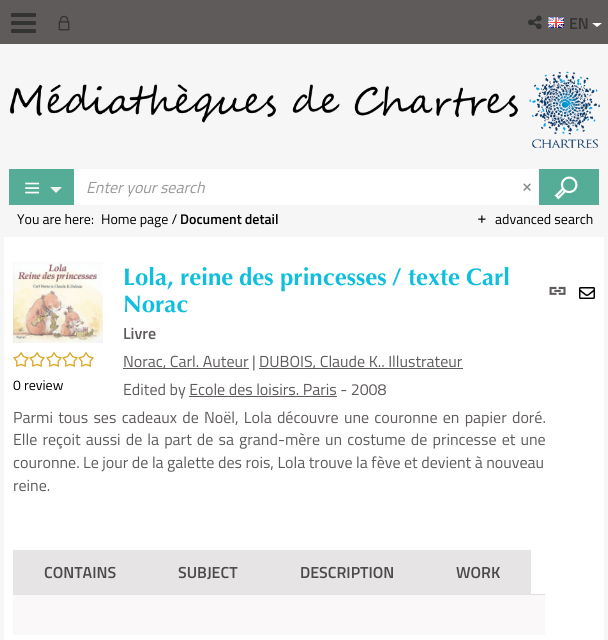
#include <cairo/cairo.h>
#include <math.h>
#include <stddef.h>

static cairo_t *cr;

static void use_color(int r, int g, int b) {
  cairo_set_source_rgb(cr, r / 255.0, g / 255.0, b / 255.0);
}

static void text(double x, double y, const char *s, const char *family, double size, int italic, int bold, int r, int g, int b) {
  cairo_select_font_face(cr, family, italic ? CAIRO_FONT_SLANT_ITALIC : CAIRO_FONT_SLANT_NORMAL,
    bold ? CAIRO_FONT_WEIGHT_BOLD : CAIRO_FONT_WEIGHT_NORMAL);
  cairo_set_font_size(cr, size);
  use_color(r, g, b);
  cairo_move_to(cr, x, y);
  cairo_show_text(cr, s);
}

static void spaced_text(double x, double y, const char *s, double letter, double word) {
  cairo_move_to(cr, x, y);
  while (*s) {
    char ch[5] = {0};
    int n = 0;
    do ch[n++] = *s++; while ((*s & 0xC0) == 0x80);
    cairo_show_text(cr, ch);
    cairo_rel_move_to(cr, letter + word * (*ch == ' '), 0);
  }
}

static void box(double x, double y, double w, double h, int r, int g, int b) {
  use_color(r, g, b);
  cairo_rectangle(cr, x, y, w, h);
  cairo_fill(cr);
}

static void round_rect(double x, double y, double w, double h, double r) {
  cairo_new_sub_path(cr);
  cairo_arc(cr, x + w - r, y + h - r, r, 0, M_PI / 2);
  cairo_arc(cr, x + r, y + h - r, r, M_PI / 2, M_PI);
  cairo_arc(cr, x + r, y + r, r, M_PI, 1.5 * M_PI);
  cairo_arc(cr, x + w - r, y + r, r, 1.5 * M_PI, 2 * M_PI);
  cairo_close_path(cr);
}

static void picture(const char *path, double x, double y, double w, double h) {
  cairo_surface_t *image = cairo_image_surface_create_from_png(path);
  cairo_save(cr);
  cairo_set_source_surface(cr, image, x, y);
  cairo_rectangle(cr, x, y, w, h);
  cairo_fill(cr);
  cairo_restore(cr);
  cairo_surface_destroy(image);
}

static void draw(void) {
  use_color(246, 246, 246);
  cairo_paint(cr);
  box(0, 0, 608, 44, 95, 91, 91);
  use_color(51, 51, 51);
  round_rect(11, 13, 25, 4, 1);
  cairo_fill(cr);
  round_rect(11, 21, 25, 4, 1);
  cairo_fill(cr);
  round_rect(11, 29, 25, 4, 1);
  cairo_fill(cr);
  picture("img_01.png", 58, 15, 12, 16);
  picture("img_02.png", 528, 15, 14, 15);
  picture("img_03.png", 548, 17, 16, 11);
  use_color(255, 255, 255);
  cairo_new_path(cr);
  cairo_move_to(cr, 592, 23);
  cairo_line_to(cr, 602, 23);
  cairo_line_to(cr, 597, 27);
  cairo_close_path(cr);
  cairo_fill(cr);
  picture("img_04.png", 9, 71, 591, 77);
  box(9, 169, 65, 36, 86, 173, 151);
  picture("img_05.png", 25, 182, 15, 12);
  use_color(242, 240, 241);
  cairo_new_path(cr);
  cairo_move_to(cr, 50, 187);
  cairo_line_to(cr, 62, 187);
  cairo_line_to(cr, 56, 193);
  cairo_close_path(cr);
  cairo_fill(cr);
  box(74, 169, 465, 36, 255, 255, 255);
  picture("img_06.png", 523, 183, 8, 8);
  box(539, 169, 60, 36, 86, 173, 151);
  picture("img_07.png", 554, 176, 24, 24);
  picture("img_08.png", 478, 215, 8, 8);
  box(4, 237, 600, 403, 255, 255, 255);
  box(123, 368, 126, 1, 95, 91, 91);
  box(259, 368, 204, 1, 95, 91, 91);
  box(189, 396, 148, 1, 95, 91, 91);
  box(531, 594, 14, 1, 221, 221, 221);
  box(13, 550, 518, 45, 230, 228, 229);
  box(13, 595, 532, 40, 250, 248, 249);
  picture("img_09.png", 13, 262, 90, 81);
  picture("img_10.png", 13, 351, 16, 16);
  picture("img_10.png", 29, 351, 16, 16);
  picture("img_10.png", 46, 351, 16, 16);
  picture("img_10.png", 62, 351, 16, 16);
  picture("img_10.png", 78, 351, 16, 16);
  picture("img_11.png", 549, 286, 17, 9);
  picture("img_12.png", 579, 287, 16, 12);
  text(569, 29, "EN", "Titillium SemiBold", 16, 0, 0, 51, 51, 51);
  text(86, 193, "Enter your search", "Titillium", 16, 1, 0, 153, 153, 153);
  text(495, 224, "advanced search", "Titillium", 14, 0, 0, 0, 0, 0);
  text(17, 224, "You are here:", "Titillium", 14, 0, 0, 0, 0, 0);
  text(101, 224, "Home page /", "Titillium", 14, 0, 0, 0, 0, 0);
  text(180, 224, "Document detail", "Titillium SemiBold", 14, 0, 0, 0, 0, 0);
  text(123, 285, "Lola,", "Optima", 24, 0, 1, 16, 191, 222);
  text(180, 285, "reine", "Optima", 24, 0, 1, 16, 191, 222);
  text(239, 285, "des", "Optima", 24, 0, 1, 16, 191, 222);
  text(280, 285, "princesses", "Optima", 24, 0, 1, 16, 191, 222);
  text(392, 285, "/", "Optima", 24, 0, 1, 16, 191, 222);
  text(408, 285, "texte", "Optima", 24, 0, 1, 16, 191, 222);
  text(466, 285, "Carl", "Optima", 24, 0, 1, 16, 191, 222);
  text(123, 312, "Norac", "Optima", 24, 0, 1, 16, 191, 222);
  text(123, 339, "Livre", "Titillium SemiBold", 16, 0, 0, 95, 91, 91);
  text(123, 367, "Norac, Carl. Auteur |", "Titillium", 16, 0, 0, 95, 91, 91);
  text(259, 367, "DUBOIS, Claude K.. Illustrateur", "Titillium", 16, 0, 0, 95, 91, 91);
  text(123, 395, "Edited by Ecole des loisirs. Paris - 2008", "Titillium", 16, 0, 0, 95, 91, 91);
  spaced_text(13, 423, "Parmi tous ses cadeaux de Noël, Lola découvre une couronne en papier doré.", 0, 1.75);
  spaced_text(13, 445, "Elle reçoit aussi de la part de sa grand-mère un costume de princesse et une", 0, 1.6);
  text(13, 468, "couronne. Le jour de la galette des rois, Lola trouve la fève et devient à nouveau", "Titillium", 16, 0, 0, 95, 91, 91);
  text(13, 491, "reine.", "Titillium", 16, 0, 0, 95, 91, 91);
  text(44, 578, "CONTAINS", "Titillium SemiBold", 16, 0, 0, 75, 73, 74);
  text(178, 578, "SUBJECT", "Titillium SemiBold", 16, 0, 0, 75, 73, 74);
  text(300, 578, "DESCRIPTION", "Titillium SemiBold", 16, 0, 0, 75, 73, 74);
  text(456, 578, "WORK", "Titillium SemiBold", 16, 0, 0, 75, 73, 74);
  text(13, 390, "0 review", "Titillium", 14, 0, 0, 0, 0, 0);
}

int main(void) {
  cairo_surface_t *surface = cairo_image_surface_create(CAIRO_FORMAT_RGB24, 608, 640);
  cr = cairo_create(surface);
  cairo_font_options_t *options = cairo_font_options_create();
  cairo_font_options_set_hint_metrics(options, CAIRO_HINT_METRICS_OFF);
  cairo_font_options_set_hint_style(options, CAIRO_HINT_STYLE_NONE);
  cairo_set_font_options(cr, options);
  cairo_set_miter_limit(cr, 4);
  draw();
  cairo_surface_write_to_png(surface, "out.png");
  cairo_font_options_destroy(options);
  cairo_destroy(cr);
  cairo_surface_destroy(surface);
  return 0;
}
